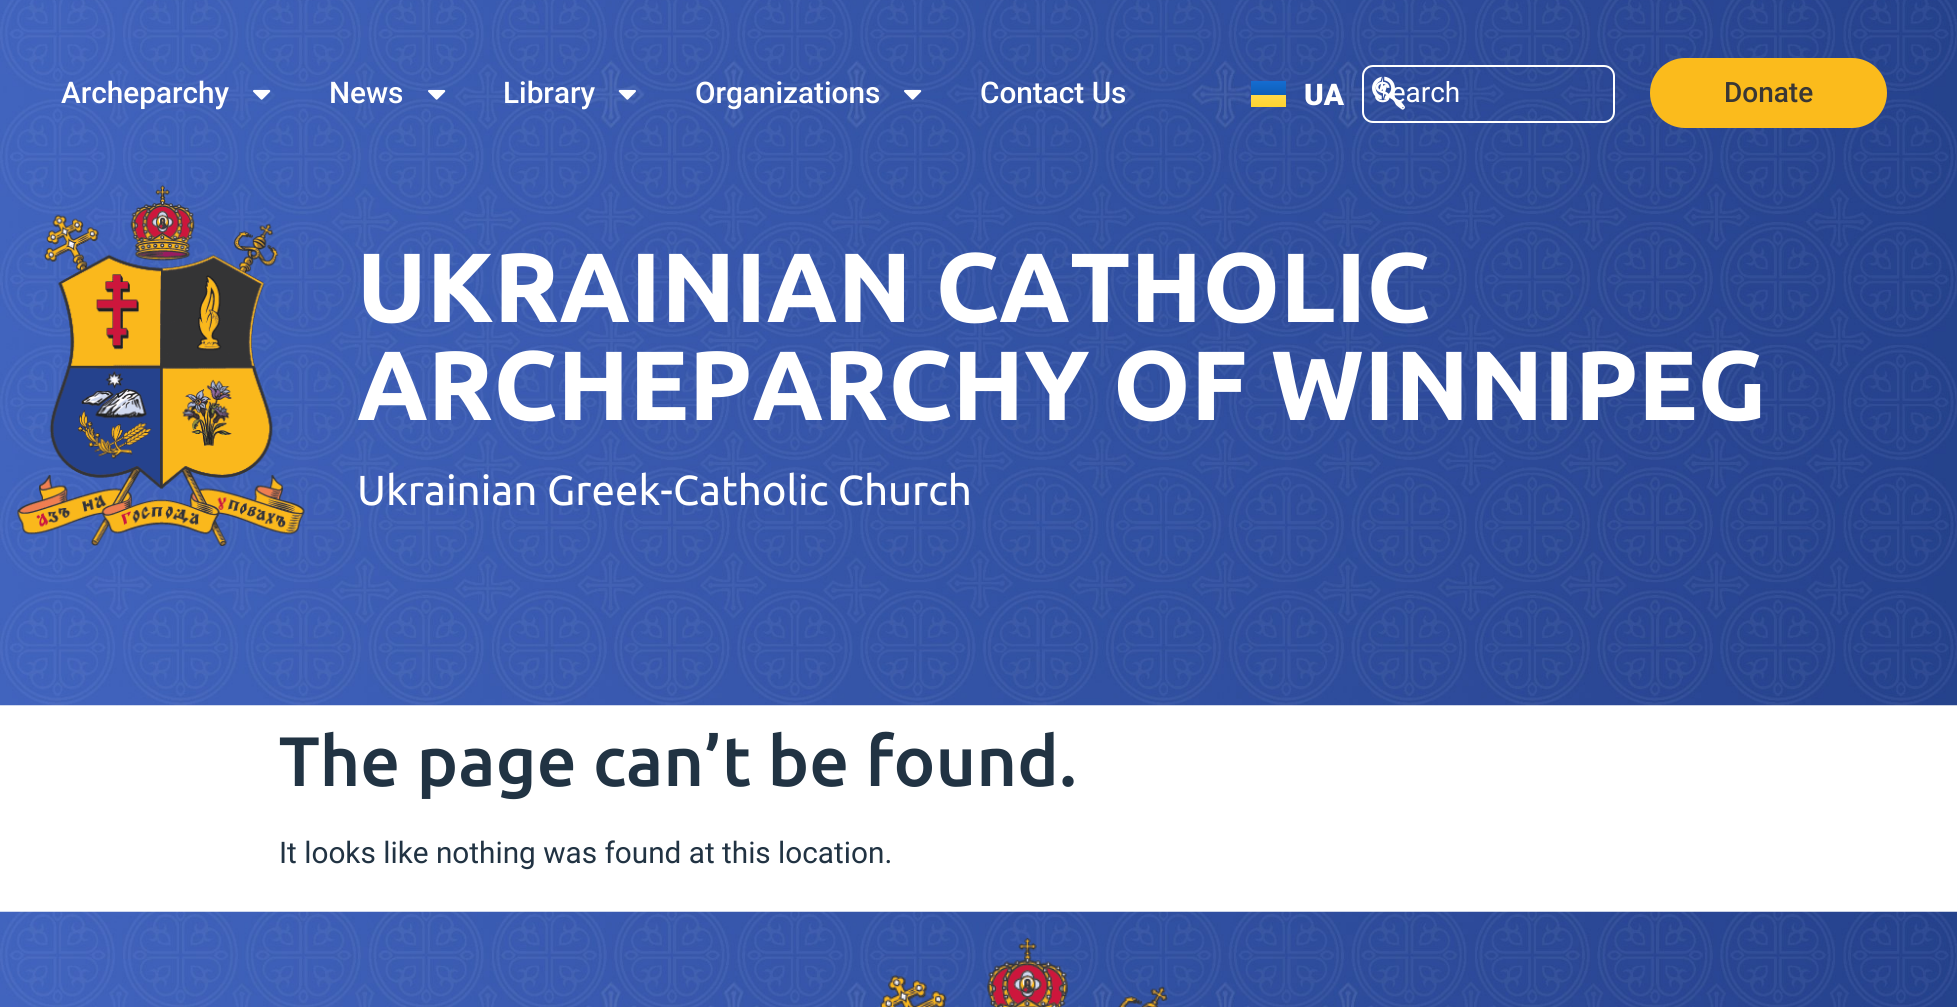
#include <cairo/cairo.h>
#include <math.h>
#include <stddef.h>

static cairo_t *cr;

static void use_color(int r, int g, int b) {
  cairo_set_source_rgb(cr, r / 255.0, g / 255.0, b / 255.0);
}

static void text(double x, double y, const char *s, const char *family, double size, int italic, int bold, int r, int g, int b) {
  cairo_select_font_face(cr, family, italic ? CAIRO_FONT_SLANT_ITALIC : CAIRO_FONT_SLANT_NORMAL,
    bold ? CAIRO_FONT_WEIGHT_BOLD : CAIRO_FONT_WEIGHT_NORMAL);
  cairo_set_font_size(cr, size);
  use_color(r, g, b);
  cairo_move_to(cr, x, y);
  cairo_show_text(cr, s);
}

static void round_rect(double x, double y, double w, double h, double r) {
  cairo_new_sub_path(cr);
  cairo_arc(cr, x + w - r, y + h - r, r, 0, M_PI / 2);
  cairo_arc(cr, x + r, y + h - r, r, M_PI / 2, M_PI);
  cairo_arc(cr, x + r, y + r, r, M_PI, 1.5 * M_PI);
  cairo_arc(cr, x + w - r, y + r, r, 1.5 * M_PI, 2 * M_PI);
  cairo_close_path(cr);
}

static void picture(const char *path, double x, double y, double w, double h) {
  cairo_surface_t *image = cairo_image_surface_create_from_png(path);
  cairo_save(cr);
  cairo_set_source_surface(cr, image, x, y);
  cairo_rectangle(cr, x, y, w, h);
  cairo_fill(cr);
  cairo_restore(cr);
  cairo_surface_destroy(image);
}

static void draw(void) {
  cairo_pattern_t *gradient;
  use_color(255, 255, 255);
  cairo_paint(cr);
  picture("img_01.png", 0, 0, 1957, 706);
  picture("img_02.png", 253, 89, 18, 11);
  picture("img_03.png", 428, 89, 18, 11);
  picture("img_04.png", 618, 89, 18, 11);
  picture("img_05.png", 904, 89, 18, 11);
  gradient = cairo_pattern_create_linear(1270, 81, 1270, 95);
  cairo_pattern_add_color_stop_rgba(gradient, 0, 0.082, 0.427, 0.82, 1);
  cairo_pattern_add_color_stop_rgba(gradient, 1, 0.051, 0.369, 0.725, 1);
  cairo_set_source(cr, gradient);
  cairo_pattern_destroy(gradient);
  cairo_rectangle(cr, 1251, 81, 35, 14);
  cairo_fill(cr);
  gradient = cairo_pattern_create_linear(1270, 95, 1270, 107);
  cairo_pattern_add_color_stop_rgba(gradient, 0, 1, 0.851, 0.282, 1);
  cairo_pattern_add_color_stop_rgba(gradient, 1, 1, 0.831, 0.188, 1);
  cairo_set_source(cr, gradient);
  cairo_pattern_destroy(gradient);
  cairo_rectangle(cr, 1251, 95, 35, 12);
  cairo_fill(cr);
  round_rect(1363, 66, 251, 56, 10);
  use_color(255, 255, 255);
  cairo_stroke(cr);
  use_color(251, 187, 28);
  round_rect(1650, 58, 237, 70, 35);
  cairo_fill(cr);
  picture("img_07.png", 17, 185, 288, 361);
  picture("img_08.png", 0, 911, 1957, 96);
  picture("img_09.png", 880, 938, 288, 69);
  text(61, 103, "Archeparchy", "Roboto Medium", 29.75, 0, 0, 255, 255, 255);
  text(329, 103, "News", "Roboto Medium", 29.75, 0, 0, 255, 255, 255);
  text(503, 103, "Library", "Roboto Medium", 29.75, 0, 0, 255, 255, 255);
  text(695, 103, "Organizations", "Roboto Medium", 29.75, 0, 0, 255, 255, 255);
  text(980, 103, "Contact Us", "Roboto Medium", 29.75, 0, 0, 255, 255, 255);
  text(1304, 105, "UA", "Roboto Black", 29.75, 0, 0, 255, 255, 255);
  text(1374, 102, "Search", "Roboto", 28, 0, 0, 255, 255, 255);
  picture("img_06.png", 1372, 76, 33, 34);
  text(1724, 102, "Donate", "Roboto Medium", 28, 0, 0, 57, 55, 53);
  text(357, 322, "UKRAINIAN CATHOLIC", "Ubuntu", 98.3, 0, 1, 255, 255, 255);
  text(357, 420, "ARCHEPARCHY OF WINNIPEG", "Ubuntu", 98.3, 0, 1, 255, 255, 255);
  text(357, 505, "Ukrainian Greek-Catholic Church", "Ubuntu", 42, 0, 0, 255, 255, 255);
  text(279, 786, "The page can’t be found.", "Ubuntu Medium", 70, 0, 0, 33, 51, 67);
  text(279, 863, "It looks like nothing was found at this location.", "Roboto", 29.75, 0, 0, 33, 51, 67);
}

int main(void) {
  cairo_surface_t *surface = cairo_image_surface_create(CAIRO_FORMAT_RGB24, 1957, 1007);
  cr = cairo_create(surface);
  cairo_font_options_t *options = cairo_font_options_create();
  cairo_font_options_set_hint_metrics(options, CAIRO_HINT_METRICS_OFF);
  cairo_font_options_set_hint_style(options, CAIRO_HINT_STYLE_NONE);
  cairo_set_font_options(cr, options);
  cairo_set_miter_limit(cr, 4);
  draw();
  cairo_surface_write_to_png(surface, "out.png");
  cairo_font_options_destroy(options);
  cairo_destroy(cr);
  cairo_surface_destroy(surface);
  return 0;
}
